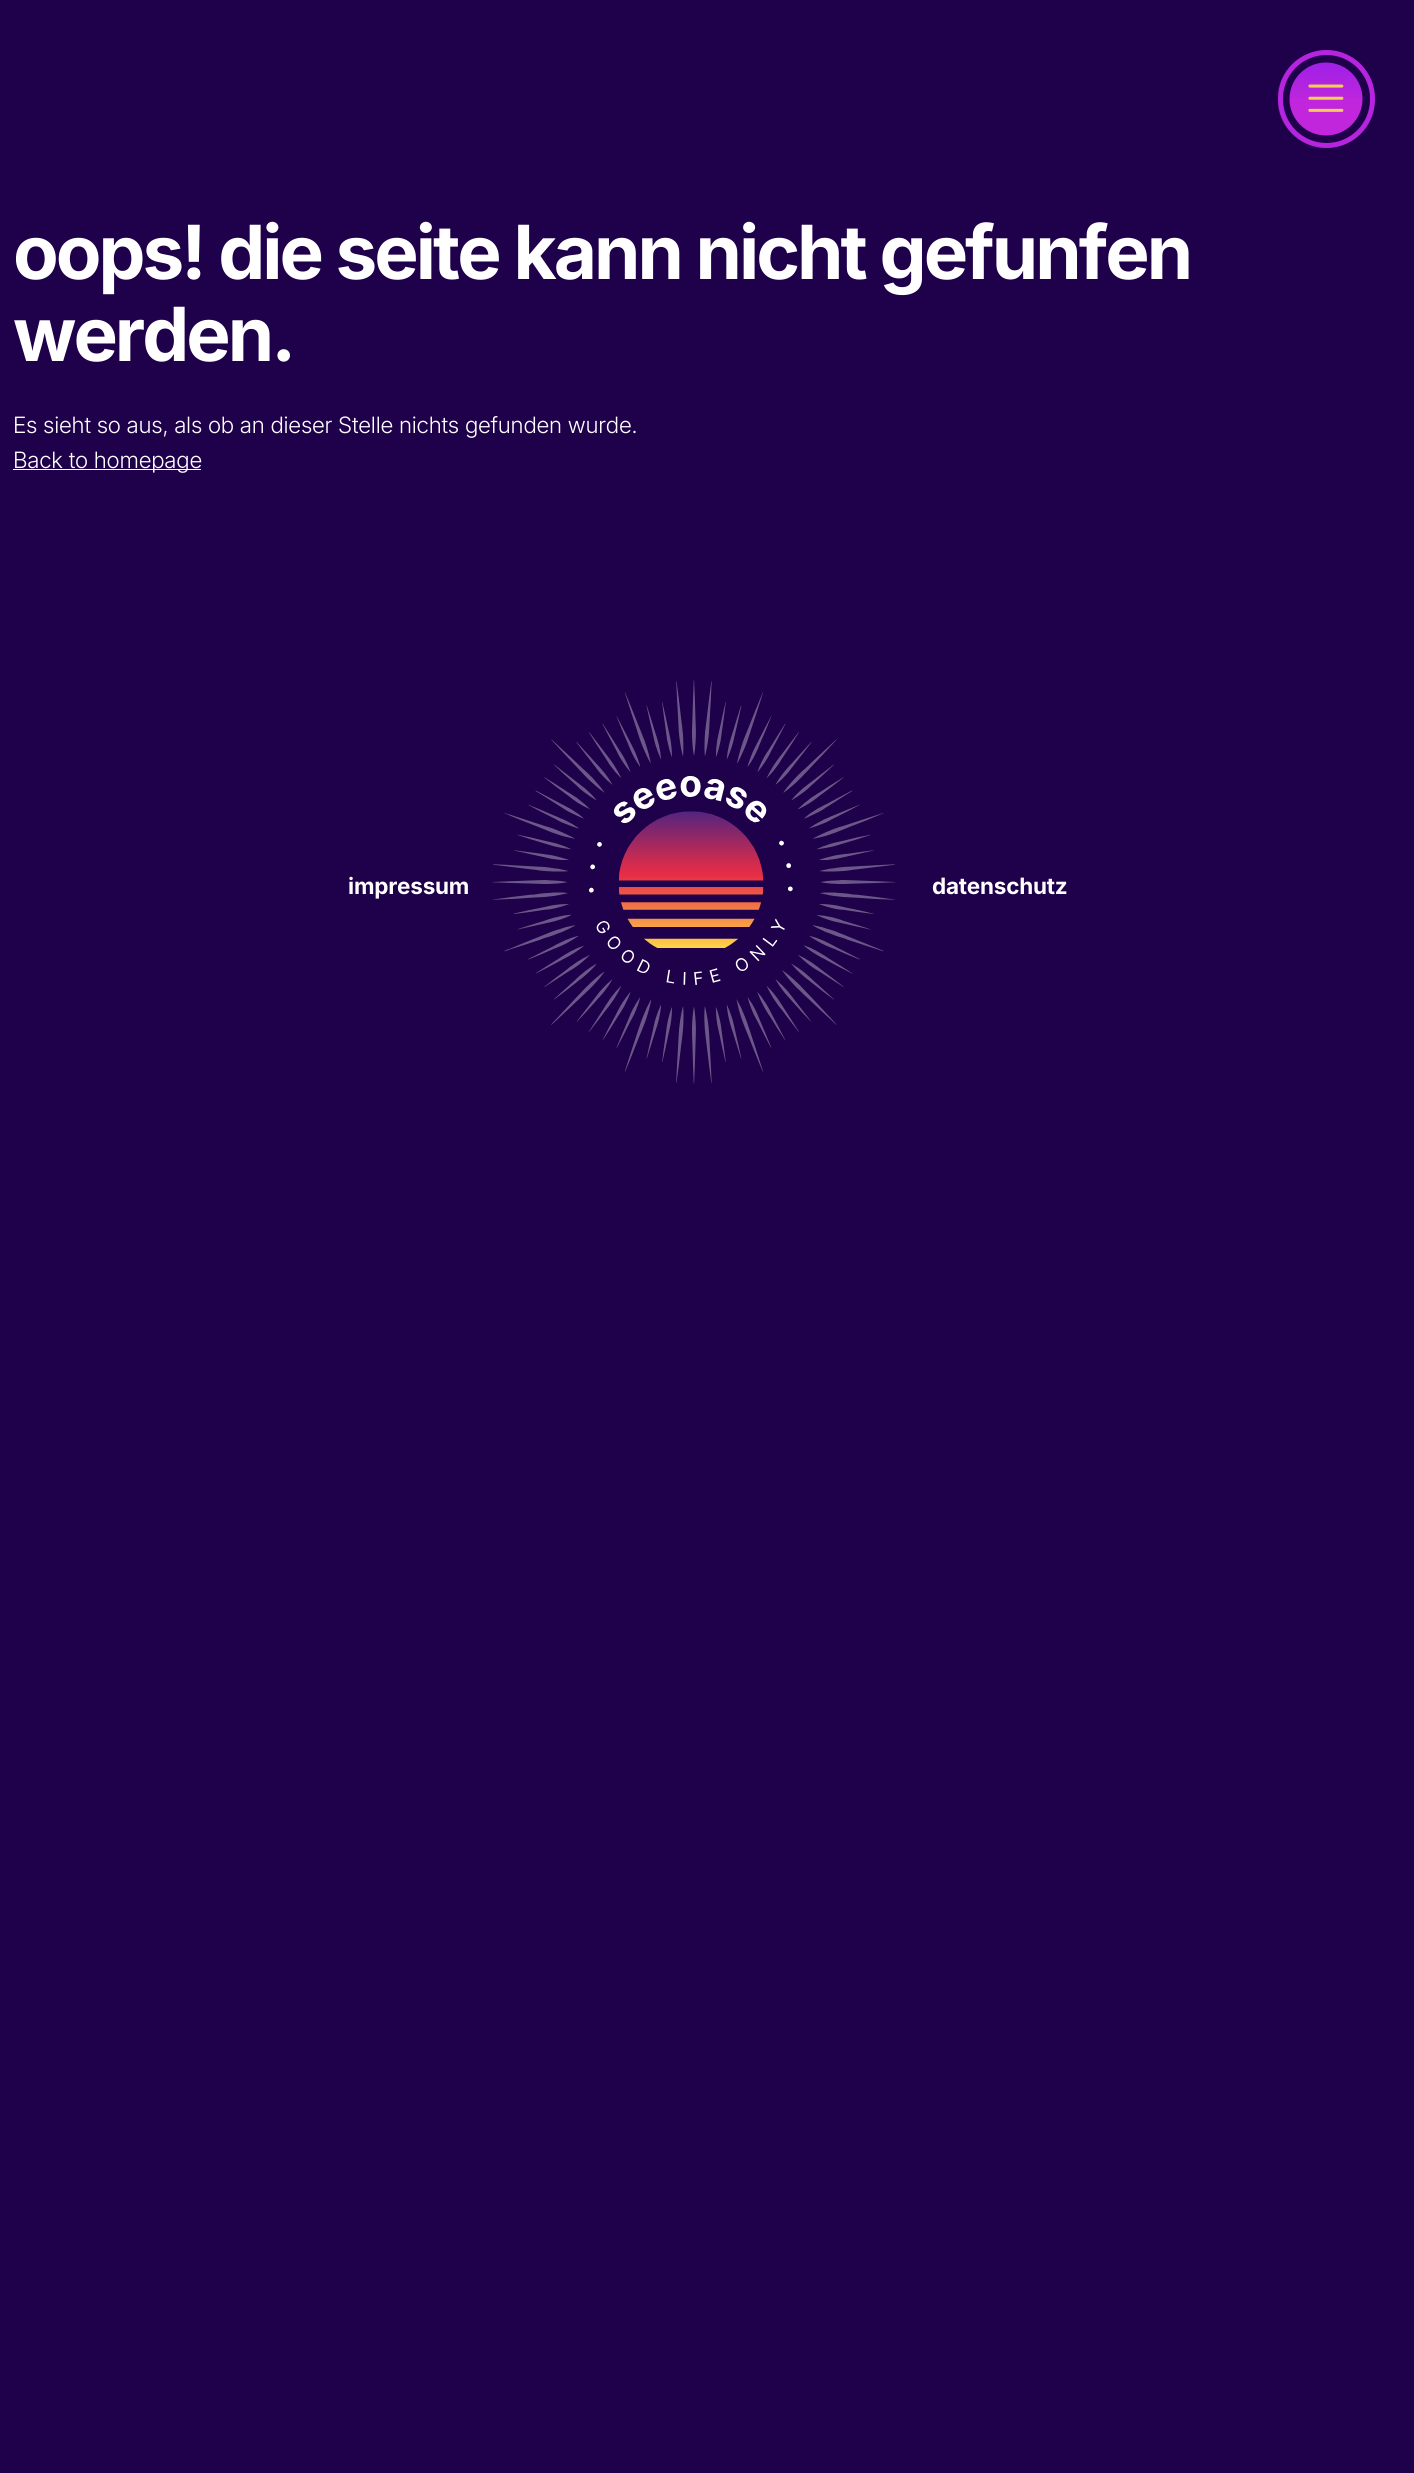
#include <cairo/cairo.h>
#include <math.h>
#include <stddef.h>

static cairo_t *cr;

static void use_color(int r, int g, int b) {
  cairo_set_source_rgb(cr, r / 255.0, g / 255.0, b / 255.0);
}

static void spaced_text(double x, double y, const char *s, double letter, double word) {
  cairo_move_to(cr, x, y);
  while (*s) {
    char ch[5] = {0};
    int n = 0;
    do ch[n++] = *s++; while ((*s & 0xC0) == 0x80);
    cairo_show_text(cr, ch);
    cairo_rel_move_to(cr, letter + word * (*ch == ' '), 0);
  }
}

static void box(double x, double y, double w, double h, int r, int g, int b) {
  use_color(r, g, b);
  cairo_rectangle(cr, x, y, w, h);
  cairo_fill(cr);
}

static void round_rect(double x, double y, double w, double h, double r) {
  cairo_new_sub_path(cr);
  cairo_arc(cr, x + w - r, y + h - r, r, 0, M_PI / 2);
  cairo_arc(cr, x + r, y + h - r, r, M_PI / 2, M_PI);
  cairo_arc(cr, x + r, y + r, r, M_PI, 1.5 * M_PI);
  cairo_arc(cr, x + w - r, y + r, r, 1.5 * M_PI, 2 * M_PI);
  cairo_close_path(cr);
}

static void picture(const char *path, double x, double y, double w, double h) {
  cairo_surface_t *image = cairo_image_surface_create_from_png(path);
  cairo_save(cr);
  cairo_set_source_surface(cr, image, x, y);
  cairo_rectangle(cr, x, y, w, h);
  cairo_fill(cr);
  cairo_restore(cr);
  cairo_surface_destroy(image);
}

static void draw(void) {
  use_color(31, 0, 74);
  cairo_paint(cr);
  picture("img_01.png", 1278, 50, 97, 98);
  round_rect(1280.5, 52.5, 92, 93, 46);
  use_color(183, 36, 223);
  cairo_set_line_width(cr, 5);
  cairo_stroke(cr);
  box(13, 469, 188, 1, 255, 255, 255);
  picture("img_02.png", 492, 680, 404, 404);
  cairo_select_font_face(cr, "Inter", CAIRO_FONT_SLANT_NORMAL, CAIRO_FONT_WEIGHT_BOLD);
  cairo_set_font_size(cr, 74.6);
  spaced_text(13, 279, "oops! die seite kann nicht gefunfen", -3, 0);
  spaced_text(13, 361, "werden.", -3, 0);
  cairo_select_font_face(cr, "Inter Light", CAIRO_FONT_SLANT_NORMAL, CAIRO_FONT_WEIGHT_NORMAL);
  cairo_set_font_size(cr, 22.5);
  spaced_text(13, 433, "Es sieht so aus, als ob an dieser Stelle nichts gefunden wurde.", -0.22, 0);
  spaced_text(13, 468, "Back to homepage", -0.22, 0);
  cairo_select_font_face(cr, "Inter", CAIRO_FONT_SLANT_NORMAL, CAIRO_FONT_WEIGHT_BOLD);
  spaced_text(348, 894, "impressum", -0.22, 0);
  spaced_text(932, 894, "datenschutz", -0.22, 0);
}

int main(void) {
  cairo_surface_t *surface = cairo_image_surface_create(CAIRO_FORMAT_RGB24, 1414, 2473);
  cr = cairo_create(surface);
  cairo_font_options_t *options = cairo_font_options_create();
  cairo_font_options_set_hint_metrics(options, CAIRO_HINT_METRICS_OFF);
  cairo_font_options_set_hint_style(options, CAIRO_HINT_STYLE_NONE);
  cairo_set_font_options(cr, options);
  cairo_set_miter_limit(cr, 4);
  draw();
  cairo_surface_write_to_png(surface, "out.png");
  cairo_font_options_destroy(options);
  cairo_destroy(cr);
  cairo_surface_destroy(surface);
  return 0;
}
